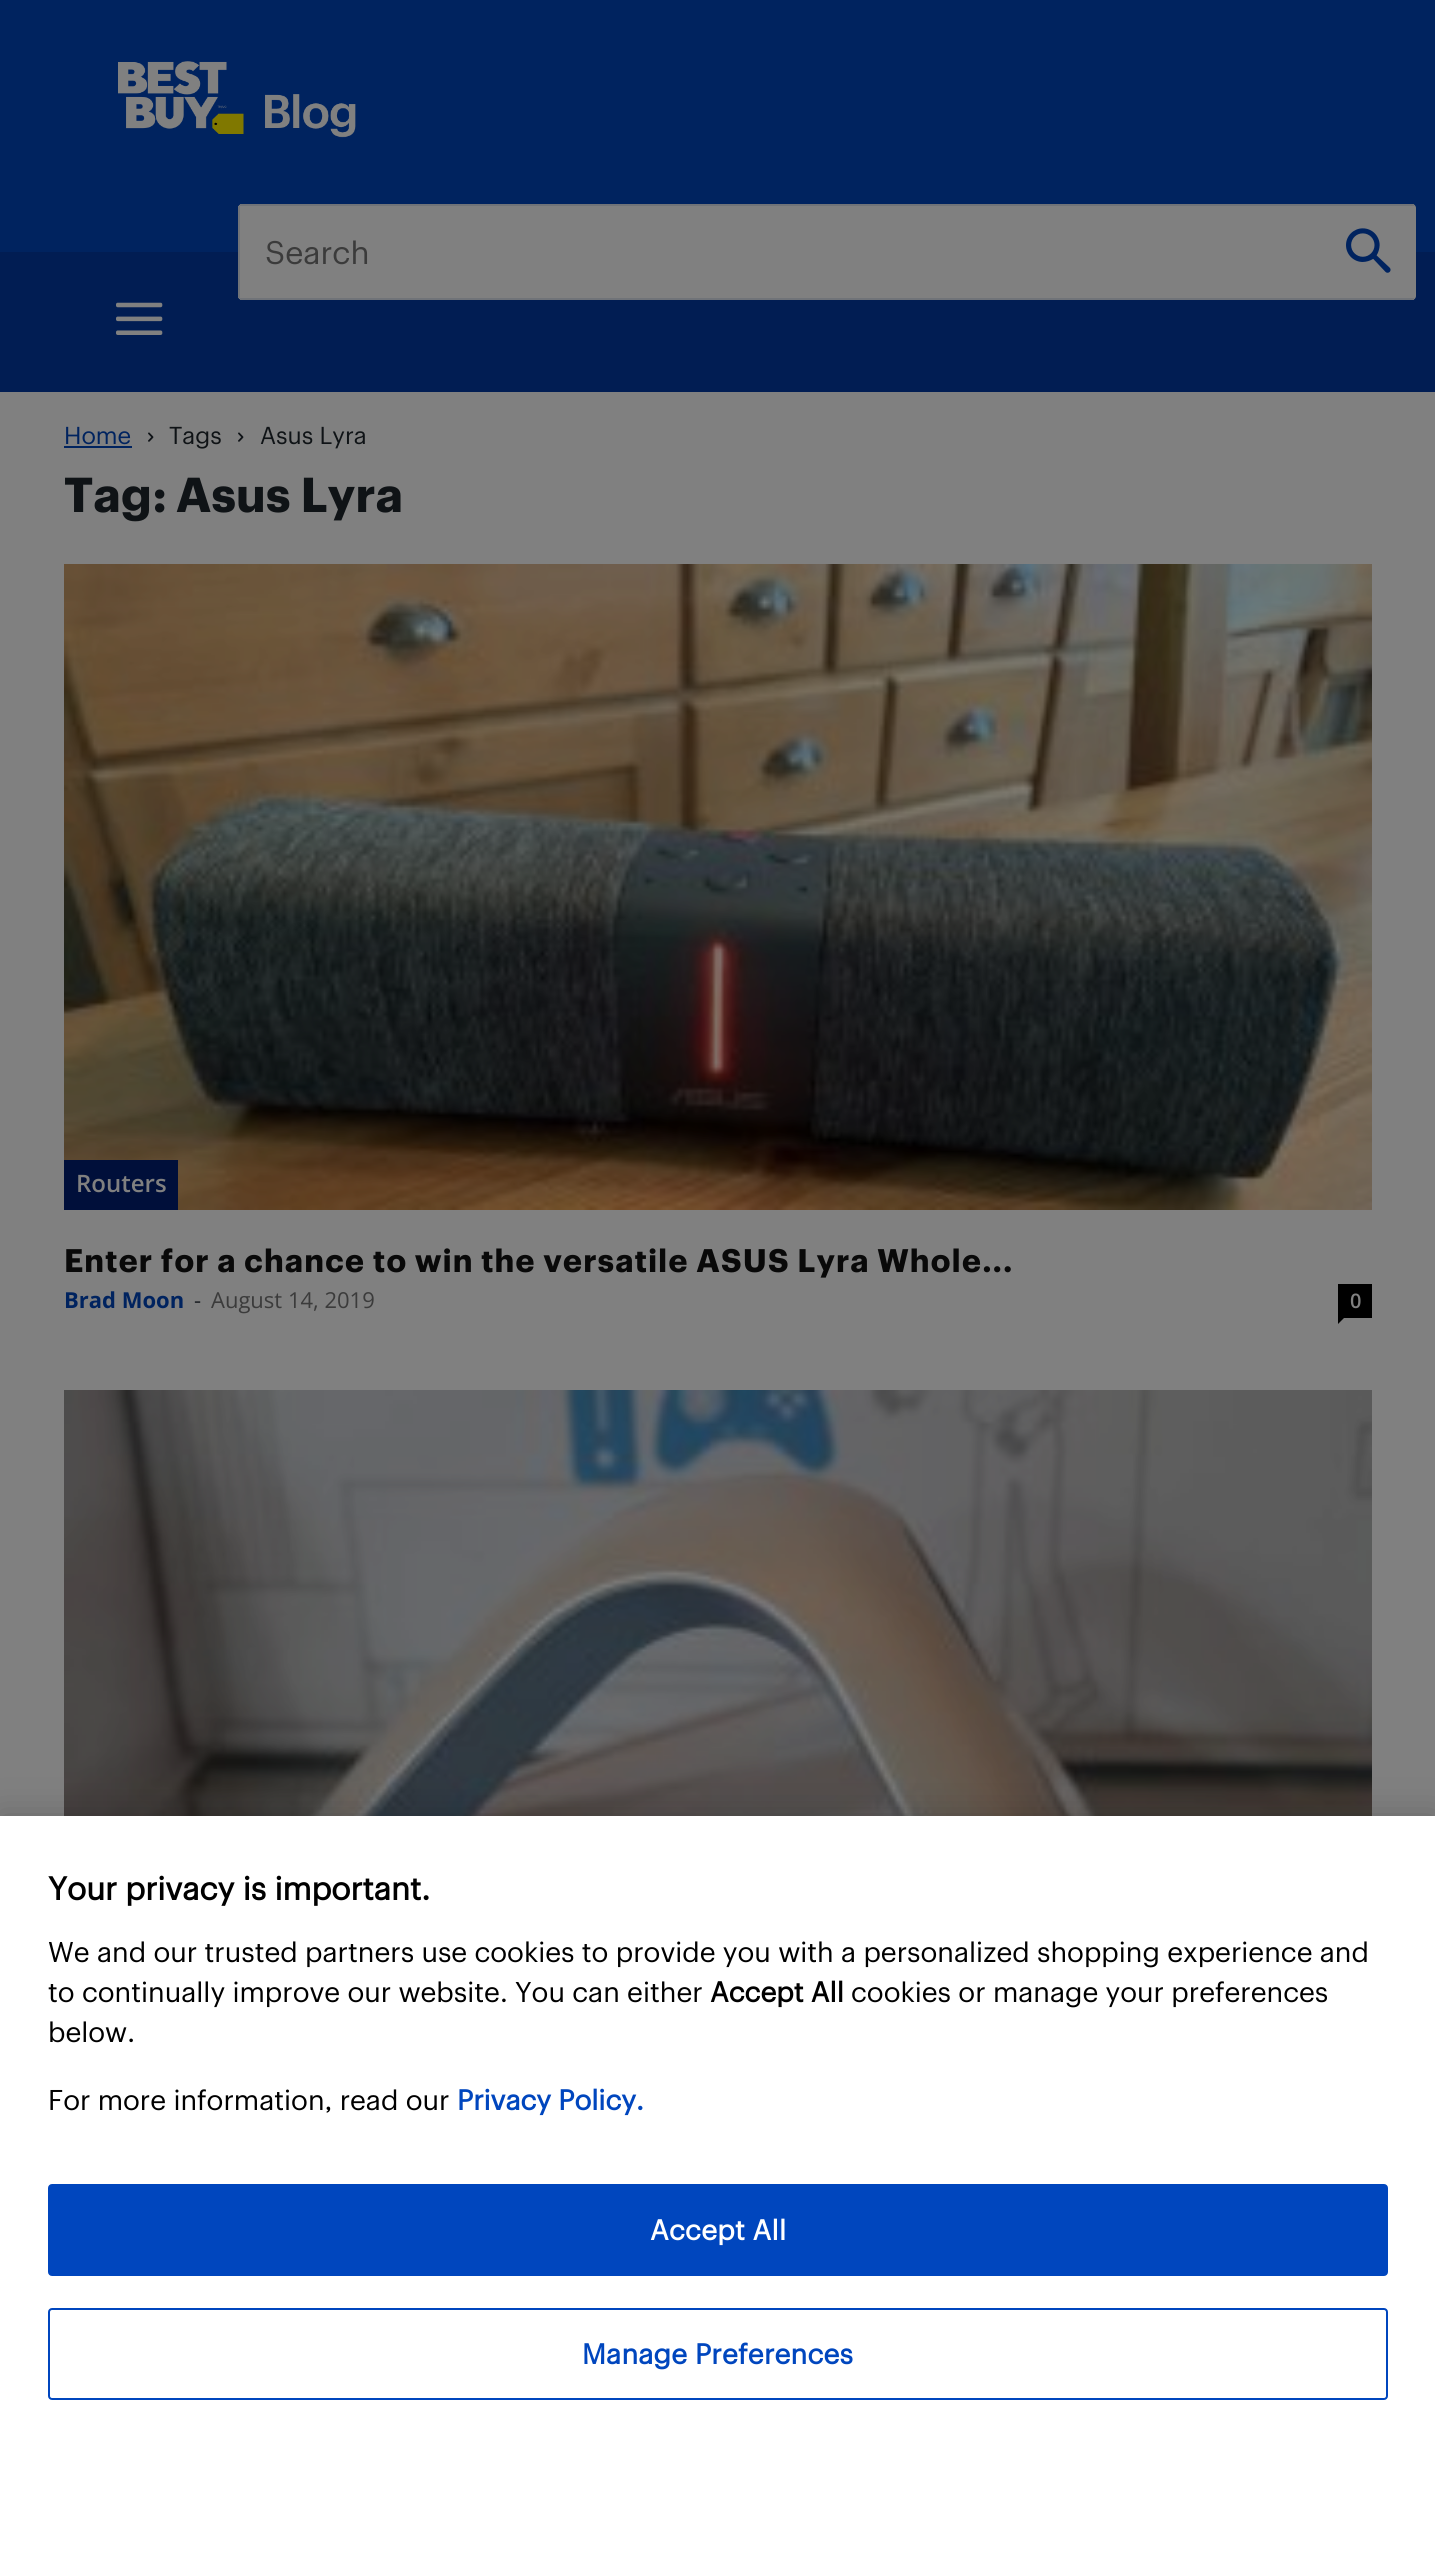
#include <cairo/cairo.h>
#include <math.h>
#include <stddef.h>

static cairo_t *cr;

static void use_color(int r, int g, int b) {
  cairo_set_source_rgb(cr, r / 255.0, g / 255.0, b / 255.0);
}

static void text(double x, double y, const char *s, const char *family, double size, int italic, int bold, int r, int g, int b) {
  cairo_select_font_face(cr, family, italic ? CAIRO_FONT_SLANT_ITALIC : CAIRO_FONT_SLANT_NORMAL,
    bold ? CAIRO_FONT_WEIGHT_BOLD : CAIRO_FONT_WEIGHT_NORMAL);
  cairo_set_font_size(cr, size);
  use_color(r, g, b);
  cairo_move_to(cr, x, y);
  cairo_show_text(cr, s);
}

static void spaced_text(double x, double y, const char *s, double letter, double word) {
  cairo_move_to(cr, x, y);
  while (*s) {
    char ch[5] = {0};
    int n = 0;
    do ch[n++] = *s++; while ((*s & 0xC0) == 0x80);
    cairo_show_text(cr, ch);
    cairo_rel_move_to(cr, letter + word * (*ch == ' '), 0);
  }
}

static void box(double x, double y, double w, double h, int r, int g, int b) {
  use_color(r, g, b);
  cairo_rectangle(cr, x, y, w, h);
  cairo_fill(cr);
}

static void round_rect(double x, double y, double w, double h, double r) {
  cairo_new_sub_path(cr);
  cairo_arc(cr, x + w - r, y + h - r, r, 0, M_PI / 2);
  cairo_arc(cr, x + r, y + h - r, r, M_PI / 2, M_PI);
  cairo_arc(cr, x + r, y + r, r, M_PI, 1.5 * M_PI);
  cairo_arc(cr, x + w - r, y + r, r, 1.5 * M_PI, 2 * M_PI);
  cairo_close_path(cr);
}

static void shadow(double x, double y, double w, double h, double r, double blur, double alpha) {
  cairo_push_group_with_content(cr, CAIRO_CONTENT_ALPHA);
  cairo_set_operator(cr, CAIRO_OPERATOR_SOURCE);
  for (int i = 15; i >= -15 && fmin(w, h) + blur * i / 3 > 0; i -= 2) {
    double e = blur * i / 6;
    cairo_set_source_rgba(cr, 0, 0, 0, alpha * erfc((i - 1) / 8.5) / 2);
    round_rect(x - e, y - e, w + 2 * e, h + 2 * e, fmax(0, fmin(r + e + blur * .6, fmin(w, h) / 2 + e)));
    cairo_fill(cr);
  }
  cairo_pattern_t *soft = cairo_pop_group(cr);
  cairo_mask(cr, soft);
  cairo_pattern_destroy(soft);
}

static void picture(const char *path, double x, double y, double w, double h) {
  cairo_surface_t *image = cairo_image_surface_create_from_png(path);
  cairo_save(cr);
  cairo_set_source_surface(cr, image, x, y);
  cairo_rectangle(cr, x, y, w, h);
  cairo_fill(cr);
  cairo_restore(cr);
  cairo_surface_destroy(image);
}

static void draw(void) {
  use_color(128, 128, 128);
  cairo_paint(cr);
  box(0, 0, 1435, 252, 0, 35, 95);
  picture("img_01.png", 118, 61, 238, 77);
  box(0, 252, 1435, 140, 1, 29, 83);
  use_color(128, 128, 128);
  round_rect(238, 204, 1178, 96, 4);
  cairo_fill(cr);
  box(240, 204, 1174, 2, 112, 115, 120);
  box(240, 298, 1174, 2, 112, 115, 120);
  box(238, 206, 2, 92, 112, 115, 120);
  picture("img_02.png", 1346, 228, 45, 45);
  picture("img_03.png", 116, 302, 47, 33);
  box(64, 446, 68, 2, 0, 35, 95);
  picture("img_04.png", 148, 432, 6, 10);
  picture("img_04.png", 238, 432, 6, 10);
  picture("img_05.png", 64, 564, 1308, 646);
  box(64, 1160, 114, 50, 0, 15, 58);
  box(1338, 1284, 34, 34, 0, 0, 0);
  cairo_new_path(cr);
  cairo_move_to(cr, 1338, 1318);
  cairo_line_to(cr, 1344, 1318);
  cairo_line_to(cr, 1338, 1324);
  cairo_close_path(cr);
  cairo_fill(cr);
  picture("img_06.png", 64, 1390, 1308, 426);
  use_color(0, 0, 0);
  shadow(0, 1816, 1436, 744, 0, 18, 0.2);
  box(0, 1816, 1435, 743, 255, 255, 255);
  use_color(0, 70, 190);
  round_rect(49, 2185, 1338, 90, 3);
  cairo_fill_preserve(cr);
  cairo_stroke(cr);
  round_rect(49, 2309, 1338, 90, 3);
  cairo_stroke(cr);
  text(265, 264, "Search", "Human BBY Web", 32, 0, 0, 59, 59, 59);
  text(64, 444, "Home", "Human BBY Web", 24, 0, 0, 0, 35, 95);
  text(169, 444, "Tags", "Human BBY Web", 24, 0, 0, 15, 19, 22);
  text(260, 444, "Asus Lyra", "Human BBY Web", 24, 0, 0, 15, 19, 22);
  text(64, 512, "Tag: Asus Lyra", "Human BBY Web", 48, 0, 1, 15, 19, 22);
  text(76, 1192, "Routers", "Open Sans SemiBold", 24, 0, 0, 128, 128, 128);
  cairo_select_font_face(cr, "Human BBY Web", CAIRO_FONT_SLANT_NORMAL, CAIRO_FONT_WEIGHT_BOLD);
  cairo_set_font_size(cr, 32);
  use_color(9, 9, 9);
  spaced_text(64, 1272, "Enter for a chance to win the versatile ASUS Lyra Whole...", 1, 0);
  text(64, 1308, "Brad Moon", "Open Sans", 22, 0, 1, 0, 35, 95);
  text(194, 1308, "-", "Open Sans", 22, 0, 0, 29, 32, 37);
  text(211, 1308, "August 14, 2019", "Open Sans", 22, 0, 0, 59, 59, 59);
  text(1350, 1308, "0", "Open Sans SemiBold", 20, 0, 0, 128, 128, 128);
  text(48, 1900, "Your privacy is important.", "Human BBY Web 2", 32, 0, 1, 0, 0, 0);
  text(48, 1962, "We and our trusted partners use cookies to provide you with a personalized shopping experience and", "Human BBY Web", 28, 0, 0, 0, 0, 0);
  text(48, 2002, "to continually improve our website. You can either", "Human BBY Web", 28, 0, 0, 0, 0, 0);
  text(710, 2002, "Accept All", "Human BBY Web 2", 28, 0, 1, 0, 0, 0);
  text(851, 2002, "cookies or manage your preferences", "Human BBY Web", 28, 0, 0, 0, 0, 0);
  text(48, 2042, "below.", "Human BBY Web", 28, 0, 0, 0, 0, 0);
  text(48, 2110, "For more information, read our", "Human BBY Web", 28, 0, 0, 0, 0, 0);
  text(457, 2110, "Privacy Policy.", "Human BBY Web 2", 28, 0, 1, 0, 70, 190);
  use_color(255, 255, 255);
  spaced_text(650, 2240, "Accept All", 0.25, 0);
  use_color(0, 70, 190);
  spaced_text(582, 2364, "Manage Preferences", 0.25, 0);
}

int main(void) {
  cairo_surface_t *surface = cairo_image_surface_create(CAIRO_FORMAT_RGB24, 1435, 2559);
  cr = cairo_create(surface);
  cairo_font_options_t *options = cairo_font_options_create();
  cairo_font_options_set_hint_metrics(options, CAIRO_HINT_METRICS_OFF);
  cairo_font_options_set_hint_style(options, CAIRO_HINT_STYLE_NONE);
  cairo_set_font_options(cr, options);
  cairo_set_miter_limit(cr, 4);
  draw();
  cairo_surface_write_to_png(surface, "out.png");
  cairo_font_options_destroy(options);
  cairo_destroy(cr);
  cairo_surface_destroy(surface);
  return 0;
}
